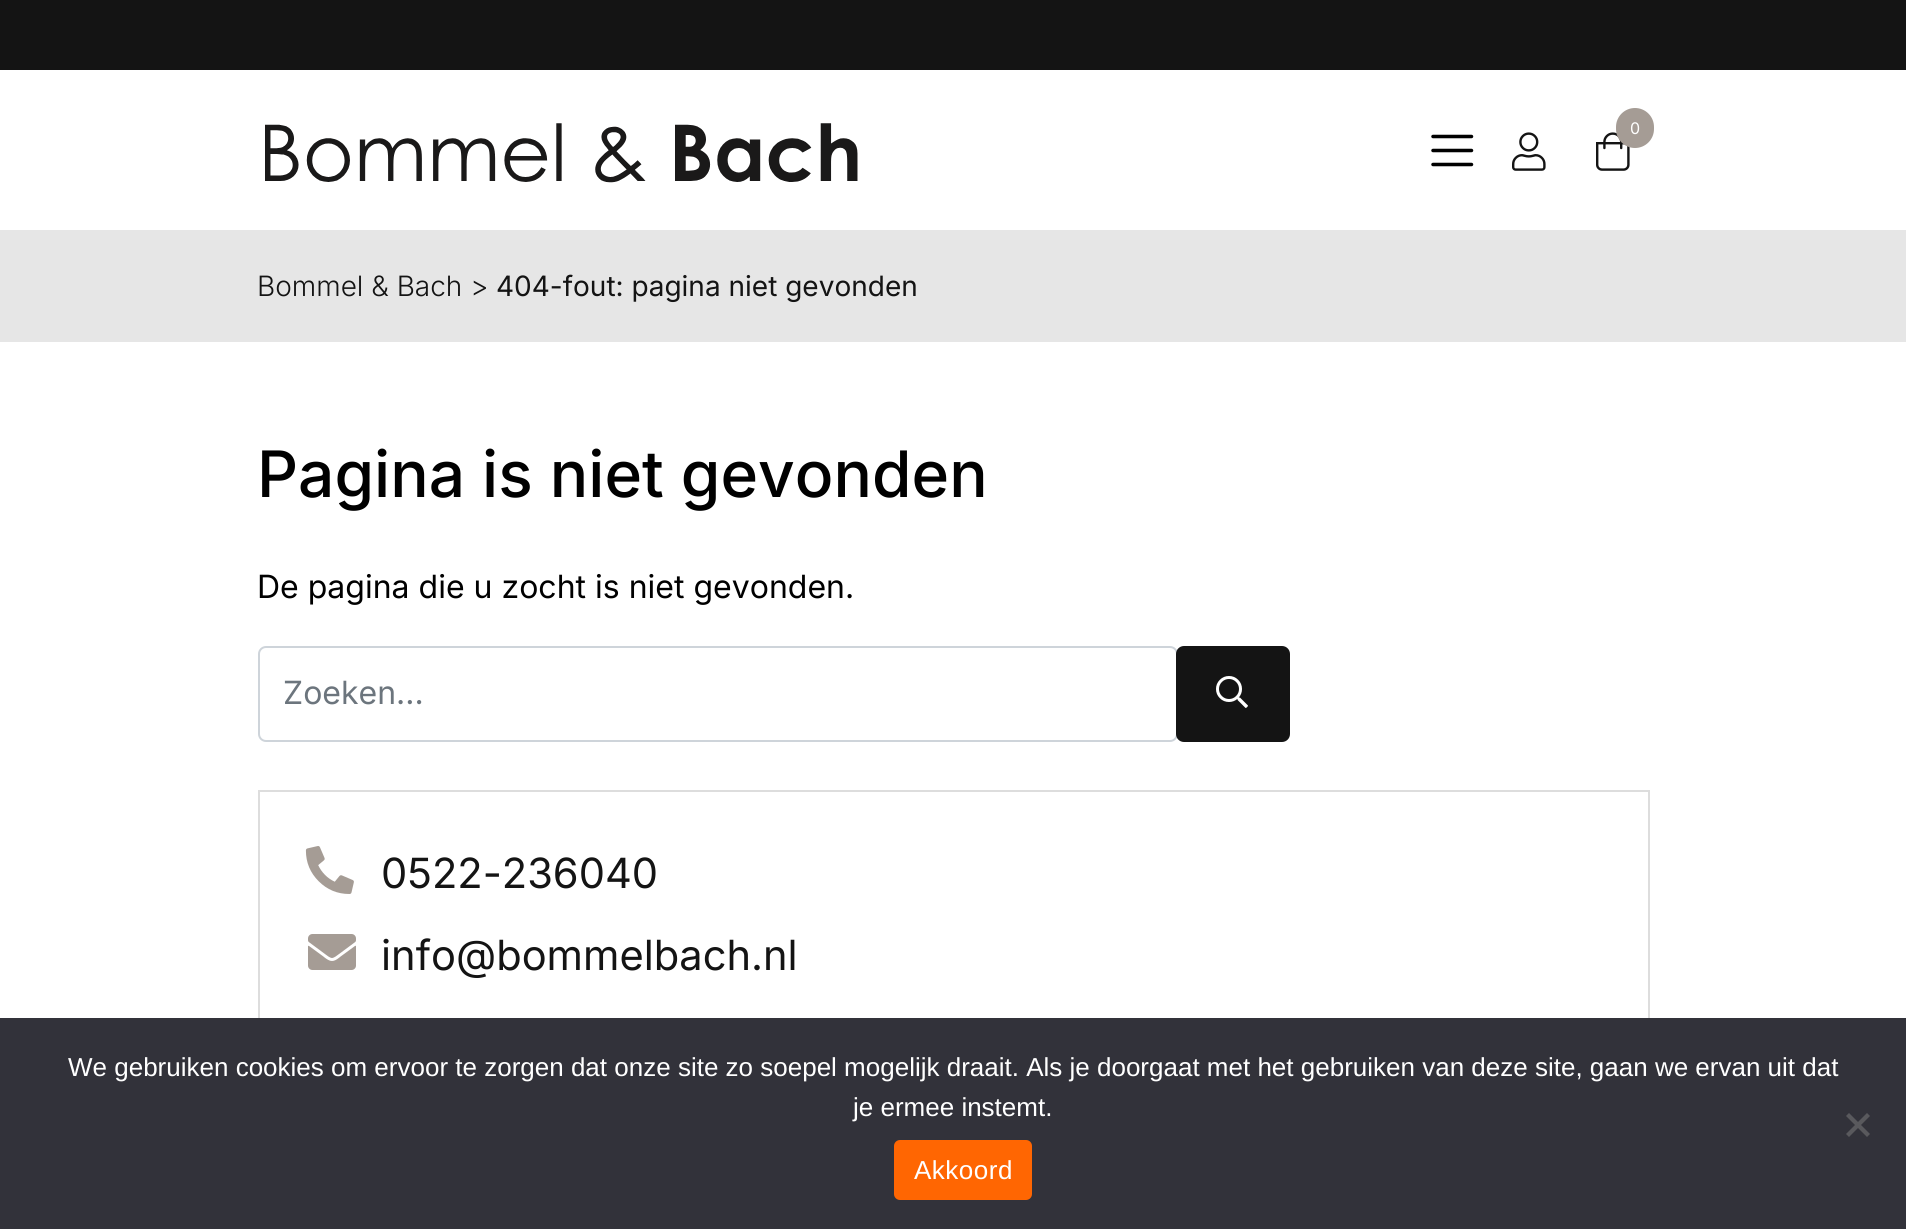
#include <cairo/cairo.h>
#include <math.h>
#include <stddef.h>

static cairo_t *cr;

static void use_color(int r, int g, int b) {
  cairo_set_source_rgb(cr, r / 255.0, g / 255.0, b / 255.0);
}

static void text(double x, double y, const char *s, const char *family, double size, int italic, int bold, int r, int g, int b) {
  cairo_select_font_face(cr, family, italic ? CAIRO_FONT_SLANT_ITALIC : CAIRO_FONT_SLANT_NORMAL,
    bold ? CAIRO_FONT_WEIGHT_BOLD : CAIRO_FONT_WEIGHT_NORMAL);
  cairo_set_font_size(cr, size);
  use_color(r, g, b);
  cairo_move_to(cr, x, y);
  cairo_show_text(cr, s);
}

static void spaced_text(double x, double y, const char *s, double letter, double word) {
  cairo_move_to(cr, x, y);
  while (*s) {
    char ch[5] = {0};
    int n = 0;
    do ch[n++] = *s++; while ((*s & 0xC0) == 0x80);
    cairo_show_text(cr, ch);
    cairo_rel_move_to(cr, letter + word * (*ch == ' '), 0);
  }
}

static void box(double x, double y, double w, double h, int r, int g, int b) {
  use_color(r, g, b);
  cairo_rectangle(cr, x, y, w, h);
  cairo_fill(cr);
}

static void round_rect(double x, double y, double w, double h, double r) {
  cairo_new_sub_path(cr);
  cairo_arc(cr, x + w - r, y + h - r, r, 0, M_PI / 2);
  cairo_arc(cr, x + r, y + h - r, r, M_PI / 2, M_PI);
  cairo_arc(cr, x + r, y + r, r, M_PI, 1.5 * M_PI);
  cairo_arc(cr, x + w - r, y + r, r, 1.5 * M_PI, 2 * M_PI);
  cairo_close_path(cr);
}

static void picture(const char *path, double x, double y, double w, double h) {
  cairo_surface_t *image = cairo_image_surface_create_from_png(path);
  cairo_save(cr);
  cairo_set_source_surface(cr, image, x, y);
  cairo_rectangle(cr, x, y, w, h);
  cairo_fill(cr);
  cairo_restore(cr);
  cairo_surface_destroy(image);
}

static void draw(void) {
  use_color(255, 255, 255);
  cairo_paint(cr);
  box(0, 0, 1906, 70, 20, 20, 20);
  box(0, 230, 1906, 112, 230, 230, 230);
  picture("img_01.png", 265, 123, 593, 60);
  cairo_new_path(cr);
  cairo_move_to(cr, 1433, 136.5);
  cairo_line_to(cr, 1471.5, 136.5);
  cairo_move_to(cr, 1433, 150.5);
  cairo_line_to(cr, 1471.5, 150.5);
  cairo_move_to(cr, 1433, 164.5);
  cairo_line_to(cr, 1471.5, 164.5);
  use_color(0, 0, 0);
  cairo_set_line_width(cr, 3.5);
  cairo_set_line_cap(cr, CAIRO_LINE_CAP_ROUND);
  cairo_stroke(cr);
  picture("img_02.png", 1596, 132, 34, 39);
  use_color(165, 156, 149);
  round_rect(1616, 108, 38, 40, 19);
  cairo_fill(cr);
  picture("img_03.png", 1512, 132, 34, 39);
  round_rect(259, 647, 918, 94, 7);
  use_color(206, 212, 218);
  cairo_set_line_width(cr, 2);
  cairo_set_line_cap(cr, CAIRO_LINE_CAP_BUTT);
  cairo_stroke(cr);
  use_color(20, 20, 20);
  round_rect(1177, 647, 112, 94, 7);
  cairo_fill_preserve(cr);
  cairo_stroke(cr);
  picture("img_04.png", 1216, 676, 32, 32);
  cairo_rectangle(cr, 259, 791, 1390, 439);
  use_color(221, 221, 221);
  cairo_stroke(cr);
  picture("img_05.png", 305, 846, 49, 48);
  picture("img_06.png", 308, 934, 48, 36);
  box(0, 1018, 1906, 211, 50, 50, 58);
  use_color(89, 89, 93);
  cairo_new_path(cr);
  cairo_move_to(cr, 1867, 1113);
  cairo_line_to(cr, 1870, 1116);
  cairo_line_to(cr, 1849, 1137);
  cairo_line_to(cr, 1846, 1134);
  cairo_close_path(cr);
  cairo_fill(cr);
  cairo_new_path(cr);
  cairo_move_to(cr, 1846, 1116);
  cairo_line_to(cr, 1849, 1113);
  cairo_line_to(cr, 1870, 1134);
  cairo_line_to(cr, 1867, 1137);
  cairo_close_path(cr);
  cairo_fill(cr);
  use_color(255, 102, 2);
  round_rect(894, 1140, 138, 60, 6);
  cairo_fill(cr);
  text(1630, 134, "0", "Inter", 16, 0, 0, 255, 255, 255);
  text(257, 296, "Bommel & Bach >", "Inter Light", 28, 0, 0, 20, 20, 20);
  text(496, 296, "404-fout: pagina niet gevonden", "Inter", 28, 0, 0, 20, 20, 20);
  text(257, 497, "Pagina is niet gevonden", "Inter Medium", 64, 0, 0, 0, 0, 0);
  text(257, 598, "De pagina die u zocht is niet gevonden.", "Inter", 32, 0, 0, 0, 0, 0);
  text(283, 704, "Zoeken...", "Inter", 32, 0, 0, 108, 117, 125);
  text(381, 888, "0522-236040", "Inter", 41.6, 0, 0, 20, 20, 20);
  text(381, 970, "info@bommelbach.nl", "Inter", 41.6, 0, 0, 20, 20, 20);
  text(68, 1076, "We gebruiken cookies om ervoor te zorgen dat onze site zo soepel mogelijk draait. Als je doorgaat met het gebruiken van deze site, gaan we ervan uit dat", "Liberation Sans", 26, 0, 0, 255, 255, 255);
  text(853, 1116, "je ermee instemt.", "Liberation Sans", 26, 0, 0, 255, 255, 255);
  spaced_text(914, 1179, "Akkoord", 0.5, 0);
}

int main(void) {
  cairo_surface_t *surface = cairo_image_surface_create(CAIRO_FORMAT_RGB24, 1906, 1229);
  cr = cairo_create(surface);
  cairo_font_options_t *options = cairo_font_options_create();
  cairo_font_options_set_hint_metrics(options, CAIRO_HINT_METRICS_OFF);
  cairo_font_options_set_hint_style(options, CAIRO_HINT_STYLE_NONE);
  cairo_set_font_options(cr, options);
  cairo_set_miter_limit(cr, 4);
  draw();
  cairo_surface_write_to_png(surface, "out.png");
  cairo_font_options_destroy(options);
  cairo_destroy(cr);
  cairo_surface_destroy(surface);
  return 0;
}
